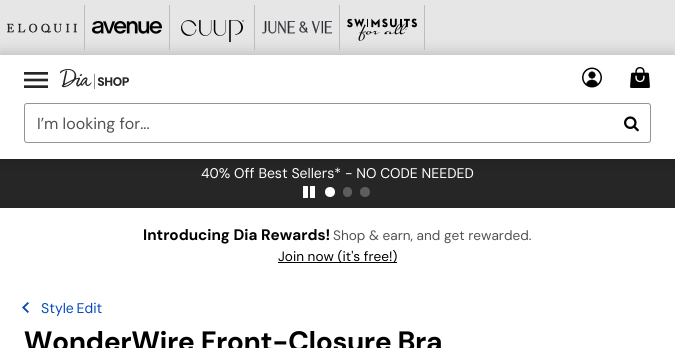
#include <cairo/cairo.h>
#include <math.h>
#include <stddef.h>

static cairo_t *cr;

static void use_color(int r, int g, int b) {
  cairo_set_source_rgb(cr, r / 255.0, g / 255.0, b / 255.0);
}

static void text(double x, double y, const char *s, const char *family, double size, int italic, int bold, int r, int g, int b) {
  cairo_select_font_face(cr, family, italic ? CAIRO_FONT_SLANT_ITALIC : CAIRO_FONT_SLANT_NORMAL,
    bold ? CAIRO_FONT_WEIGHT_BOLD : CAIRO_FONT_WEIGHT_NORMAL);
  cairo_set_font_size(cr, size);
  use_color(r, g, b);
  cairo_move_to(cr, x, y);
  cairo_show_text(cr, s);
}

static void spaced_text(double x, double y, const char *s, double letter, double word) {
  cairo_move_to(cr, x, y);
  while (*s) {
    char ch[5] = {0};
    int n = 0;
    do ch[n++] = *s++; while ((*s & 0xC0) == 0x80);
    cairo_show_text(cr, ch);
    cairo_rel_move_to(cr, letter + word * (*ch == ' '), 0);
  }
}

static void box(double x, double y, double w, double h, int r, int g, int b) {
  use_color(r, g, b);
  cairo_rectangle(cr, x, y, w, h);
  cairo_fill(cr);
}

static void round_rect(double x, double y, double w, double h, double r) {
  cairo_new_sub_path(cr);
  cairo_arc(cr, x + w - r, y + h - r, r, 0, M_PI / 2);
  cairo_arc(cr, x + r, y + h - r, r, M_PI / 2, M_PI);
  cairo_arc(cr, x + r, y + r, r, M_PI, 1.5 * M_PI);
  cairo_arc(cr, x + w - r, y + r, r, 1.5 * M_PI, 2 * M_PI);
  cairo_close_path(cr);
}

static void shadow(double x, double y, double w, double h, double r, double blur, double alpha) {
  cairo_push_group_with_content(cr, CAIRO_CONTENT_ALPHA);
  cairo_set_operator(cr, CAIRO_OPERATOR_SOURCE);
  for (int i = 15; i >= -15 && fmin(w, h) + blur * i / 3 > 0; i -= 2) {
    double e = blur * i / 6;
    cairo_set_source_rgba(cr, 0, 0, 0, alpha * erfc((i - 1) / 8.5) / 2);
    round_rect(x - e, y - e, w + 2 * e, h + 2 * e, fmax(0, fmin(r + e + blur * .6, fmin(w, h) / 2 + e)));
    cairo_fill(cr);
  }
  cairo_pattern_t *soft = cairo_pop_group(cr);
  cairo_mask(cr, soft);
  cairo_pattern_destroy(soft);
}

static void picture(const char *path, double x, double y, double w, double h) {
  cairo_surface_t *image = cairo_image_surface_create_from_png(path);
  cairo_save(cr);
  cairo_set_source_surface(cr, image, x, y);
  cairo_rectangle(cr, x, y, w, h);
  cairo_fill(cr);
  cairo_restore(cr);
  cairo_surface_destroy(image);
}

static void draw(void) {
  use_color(255, 255, 255);
  cairo_paint(cr);
  box(0, 0, 675, 55, 230, 230, 230);
  box(0, 159, 675, 49, 38, 38, 38);
  cairo_save(cr);
  cairo_set_fill_rule(cr, CAIRO_FILL_RULE_EVEN_ODD);
  cairo_new_path(cr);
  cairo_move_to(cr, 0, 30);
  cairo_line_to(cr, 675, 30);
  cairo_line_to(cr, 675, 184);
  cairo_line_to(cr, 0, 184);
  cairo_close_path(cr);
  cairo_move_to(cr, 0, 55);
  cairo_line_to(cr, 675, 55);
  cairo_line_to(cr, 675, 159);
  cairo_line_to(cr, 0, 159);
  cairo_close_path(cr);
  cairo_clip(cr);
  use_color(0, 0, 0);
  shadow(0, 55, 675, 104, 0, 8, 0.24);
  cairo_restore(cr);
  box(84, 5, 1, 45, 189, 189, 189);
  picture("img_01.png", 7, 23, 70, 10);
  box(169, 5, 1, 45, 189, 189, 189);
  picture("img_02.png", 92, 21, 70, 13);
  box(254, 5, 1, 45, 189, 189, 189);
  picture("img_03.png", 181, 20, 63, 23);
  box(339, 5, 1, 45, 189, 189, 189);
  picture("img_04.png", 262, 21, 70, 13);
  box(424, 5, 1, 45, 189, 189, 189);
  picture("img_05.png", 347, 18, 70, 23);
  picture("img_06.png", 24, 72, 24, 16);
  picture("img_07.png", 60, 69, 69, 20);
  picture("img_08.png", 582, 67, 20, 21);
  picture("img_09.png", 630, 67, 20, 21);
  round_rect(24.5, 103.5, 626, 39, 2.5);
  use_color(148, 148, 148);
  cairo_set_line_width(cr, 1);
  cairo_stroke(cr);
  picture("img_10.png", 624, 116, 15, 16);
  picture("img_11.png", 303, 186, 12, 12);
  use_color(255, 255, 255);
  cairo_arc(cr, 330, 192, 5, 0, 2 * M_PI);
  cairo_fill(cr);
  use_color(93, 93, 93);
  round_rect(343, 187, 9, 10, 4.5);
  cairo_fill(cr);
  cairo_arc(cr, 365, 192, 5, 0, 2 * M_PI);
  cairo_fill(cr);
  box(278, 262, 119, 1, 0, 0, 0);
  picture("img_12.png", 22, 302, 7, 11);
  text(37, 129, "I’m looking for...", "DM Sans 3", 16, 0, 0, 82, 82, 82);
  text(201, 178, "40% Off Best Sellers* - NO CODE NEEDED", "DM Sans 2", 14, 0, 0, 255, 255, 255);
  text(143, 240, "Introducing Dia Rewards!", "DM Sans", 15.25, 0, 1, 0, 0, 0);
  text(333, 240, "Shop & earn, and get rewarded.", "DM Sans", 13.6, 0, 0, 82, 82, 82);
  text(278, 261, "Join now (it's free!)", "DM Sans", 13.6, 0, 0, 0, 0, 0);
  cairo_select_font_face(cr, "DM Sans 2", CAIRO_FONT_SLANT_NORMAL, CAIRO_FONT_WEIGHT_NORMAL);
  cairo_set_font_size(cr, 14);
  use_color(4, 73, 185);
  spaced_text(41, 313, "Style Edit", 0, -1);
  text(24, 351, "WonderWire Front-Closure Bra", "DM Sans 2", 28, 0, 1, 0, 0, 0);
}

int main(void) {
  cairo_surface_t *surface = cairo_image_surface_create(CAIRO_FORMAT_RGB24, 675, 348);
  cr = cairo_create(surface);
  cairo_font_options_t *options = cairo_font_options_create();
  cairo_font_options_set_hint_metrics(options, CAIRO_HINT_METRICS_OFF);
  cairo_font_options_set_hint_style(options, CAIRO_HINT_STYLE_NONE);
  cairo_set_font_options(cr, options);
  cairo_set_miter_limit(cr, 4);
  draw();
  cairo_surface_write_to_png(surface, "out.png");
  cairo_font_options_destroy(options);
  cairo_destroy(cr);
  cairo_surface_destroy(surface);
  return 0;
}
